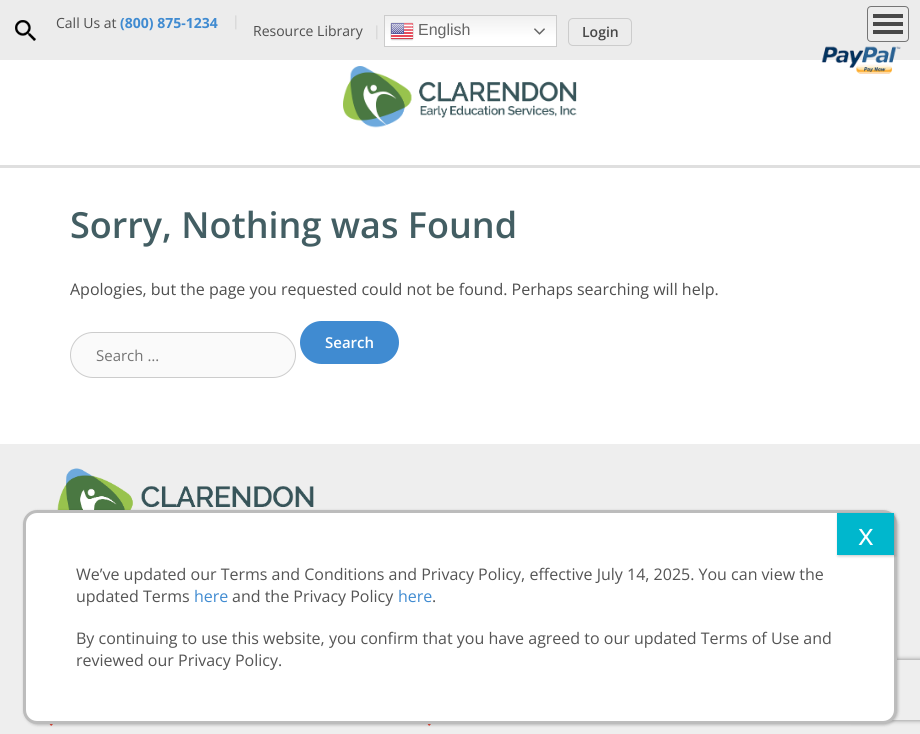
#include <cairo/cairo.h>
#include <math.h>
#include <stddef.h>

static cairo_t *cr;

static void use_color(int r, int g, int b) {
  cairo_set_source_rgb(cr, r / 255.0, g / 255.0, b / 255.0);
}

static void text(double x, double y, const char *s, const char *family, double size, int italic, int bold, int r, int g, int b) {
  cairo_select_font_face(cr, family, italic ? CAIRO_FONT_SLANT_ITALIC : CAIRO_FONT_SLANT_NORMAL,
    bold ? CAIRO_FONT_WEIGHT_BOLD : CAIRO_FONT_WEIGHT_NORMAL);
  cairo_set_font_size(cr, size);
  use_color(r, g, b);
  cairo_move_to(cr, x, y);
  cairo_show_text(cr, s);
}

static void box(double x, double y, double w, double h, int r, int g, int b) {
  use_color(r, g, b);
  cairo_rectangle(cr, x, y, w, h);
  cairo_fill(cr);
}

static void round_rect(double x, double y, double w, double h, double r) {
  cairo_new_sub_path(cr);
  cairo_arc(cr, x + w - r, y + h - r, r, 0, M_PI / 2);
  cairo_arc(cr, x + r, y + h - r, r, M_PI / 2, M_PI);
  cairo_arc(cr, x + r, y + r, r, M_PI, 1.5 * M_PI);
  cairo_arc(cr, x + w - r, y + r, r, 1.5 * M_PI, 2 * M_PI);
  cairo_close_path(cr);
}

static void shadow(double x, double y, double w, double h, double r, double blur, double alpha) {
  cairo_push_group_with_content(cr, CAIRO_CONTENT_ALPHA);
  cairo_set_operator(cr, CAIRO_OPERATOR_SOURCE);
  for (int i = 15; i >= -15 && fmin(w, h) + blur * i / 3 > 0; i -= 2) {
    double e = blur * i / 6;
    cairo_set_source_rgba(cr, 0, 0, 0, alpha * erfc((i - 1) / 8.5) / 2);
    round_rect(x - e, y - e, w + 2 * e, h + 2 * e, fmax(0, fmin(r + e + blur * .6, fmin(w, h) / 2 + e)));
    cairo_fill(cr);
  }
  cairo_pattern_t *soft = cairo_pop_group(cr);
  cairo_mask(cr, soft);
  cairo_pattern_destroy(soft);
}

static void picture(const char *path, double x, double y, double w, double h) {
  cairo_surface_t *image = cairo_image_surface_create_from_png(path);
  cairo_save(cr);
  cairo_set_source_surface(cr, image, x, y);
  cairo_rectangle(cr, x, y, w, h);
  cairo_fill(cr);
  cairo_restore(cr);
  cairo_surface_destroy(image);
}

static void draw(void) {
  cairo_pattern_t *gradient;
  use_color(255, 255, 255);
  cairo_paint(cr);
  box(0, 165, 920, 3, 223, 223, 223);
  box(0, 0, 920, 60, 236, 236, 236);
  picture("img_01.png", 15, 20, 21, 21);
  gradient = cairo_pattern_create_linear(471, 15, 471, 47);
  cairo_pattern_add_color_stop_rgba(gradient, 0, 0.937, 0.937, 0.937, 1);
  cairo_pattern_add_color_stop_rgba(gradient, 0.7, 1, 1, 1, 1);
  cairo_set_source(cr, gradient);
  cairo_pattern_destroy(gradient);
  cairo_rectangle(cr, 385, 16, 171, 30);
  cairo_fill(cr);
  cairo_rectangle(cr, 384.5, 15.5, 172, 31);
  use_color(204, 204, 204);
  cairo_set_line_width(cr, 1);
  cairo_stroke(cr);
  picture("img_02.png", 390, 22, 24, 19);
  picture("img_03.png", 534, 28, 11, 7);
  round_rect(568.5, 18.5, 63, 27, 4.5);
  cairo_stroke(cr);
  picture("img_04.png", 821, 46, 80, 28);
  picture("img_05.png", 343, 66, 234, 62);
  round_rect(867.5, 6.5, 41, 35, 3.5);
  use_color(117, 117, 117);
  cairo_stroke(cr);
  box(873, 14, 30, 4, 72, 72, 72);
  box(873, 22, 30, 4, 72, 72, 72);
  box(873, 30, 30, 4, 72, 72, 72);
  use_color(64, 139, 209);
  round_rect(300, 321, 99, 43, 21.5);
  cairo_fill(cr);
  use_color(250, 250, 250);
  round_rect(70.5, 332.5, 225, 45, 22.5);
  cairo_fill_preserve(cr);
  use_color(204, 204, 204);
  cairo_stroke(cr);
  box(0, 444, 920, 290, 238, 238, 238);
  picture("img_06.png", 57, 468, 257, 42);
  picture("img_07.png", 49, 724, 4, 2);
  picture("img_07.png", 427, 724, 4, 2);
  use_color(2, 2, 2);
  shadow(24, 511, 874, 214, 14, 1.5, 0.23);
  cairo_save(cr);
  cairo_set_fill_rule(cr, CAIRO_FILL_RULE_EVEN_ODD);
  cairo_new_path(cr);
  cairo_move_to(cr, 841, 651);
  cairo_line_to(cr, 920, 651);
  cairo_line_to(cr, 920, 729);
  cairo_line_to(cr, 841, 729);
  cairo_close_path(cr);
  cairo_move_to(cr, 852, 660);
  cairo_line_to(cr, 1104, 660);
  cairo_curve_to(cr, 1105, 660, 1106, 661, 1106, 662);
  cairo_line_to(cr, 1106, 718);
  cairo_curve_to(cr, 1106, 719, 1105, 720, 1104, 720);
  cairo_line_to(cr, 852, 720);
  cairo_curve_to(cr, 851, 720, 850, 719, 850, 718);
  cairo_line_to(cr, 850, 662);
  cairo_curve_to(cr, 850, 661, 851, 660, 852, 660);
  cairo_close_path(cr);
  cairo_clip(cr);
  use_color(128, 128, 128);
  shadow(850, 660, 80, 60, 2, 2.5, 1);
  cairo_restore(cr);
  use_color(255, 255, 255);
  round_rect(24.5, 511.5, 871, 211, 12.5);
  cairo_fill_preserve(cr);
  use_color(188, 188, 188);
  cairo_set_line_width(cr, 3);
  cairo_stroke(cr);
  use_color(2, 2, 2);
  shadow(838, 514, 57, 42, 0, 1.5, 0.23);
  box(837, 513, 57, 42, 0, 183, 205);
  text(56, 28, "Call Us at", "Open Sans", 14, 0, 0, 78, 78, 78);
  text(120, 28, "(800) 875-1234", "Open Sans", 14, 0, 1, 64, 139, 209);
  text(232, 26, "|", "Open Sans", 14, 0, 0, 208, 208, 208);
  text(253, 36, "Resource Library", "Open Sans", 14, 0, 0, 78, 78, 78);
  text(373, 36, "|", "Open Sans", 14, 0, 0, 208, 208, 208);
  text(418, 35, "English", "Liberation Sans", 16, 0, 0, 102, 102, 102);
  text(582, 37, "Login", "Open Sans SemiBold", 14, 0, 0, 72, 72, 72);
  text(70, 238, "Sorry, Nothing was Found", "Open Sans SemiBold", 36, 0, 0, 67, 94, 99);
  text(70, 295, "Apologies, but the page you requested could not be found. Perhaps searching will help.", "Open Sans", 16, 0, 0, 78, 78, 78);
  text(325, 348, "Search", "Open Sans SemiBold", 15, 0, 0, 255, 255, 255);
  text(96, 361, "Search …", "Open Sans", 15, 0, 0, 117, 117, 117);
  text(858, 545, "x", "Open Sans", 30, 0, 0, 255, 255, 255);
  text(76, 580, "We’ve updated our Terms and Conditions and Privacy Policy, effective July 14, 2025. You can view the", "Open Sans", 16, 0, 0, 84, 84, 84);
  text(76, 602, "updated Terms", "Open Sans", 16, 0, 0, 84, 84, 84);
  text(194, 602, "here", "Open Sans", 16, 0, 0, 64, 139, 209);
  text(232, 602, "and the Privacy Policy", "Open Sans", 16, 0, 0, 84, 84, 84);
  text(398, 602, "here", "Open Sans", 16, 0, 0, 64, 139, 209);
  text(432, 602, ".", "Open Sans", 16, 0, 0, 84, 84, 84);
  text(76, 644, "By continuing to use this website, you confirm that you have agreed to our updated Terms of Use and", "Open Sans", 16, 0, 0, 84, 84, 84);
  text(76, 666, "reviewed our Privacy Policy.", "Open Sans", 16, 0, 0, 84, 84, 84);
}

int main(void) {
  cairo_surface_t *surface = cairo_image_surface_create(CAIRO_FORMAT_RGB24, 920, 734);
  cr = cairo_create(surface);
  cairo_font_options_t *options = cairo_font_options_create();
  cairo_font_options_set_hint_metrics(options, CAIRO_HINT_METRICS_OFF);
  cairo_font_options_set_hint_style(options, CAIRO_HINT_STYLE_NONE);
  cairo_set_font_options(cr, options);
  cairo_set_miter_limit(cr, 4);
  draw();
  cairo_surface_write_to_png(surface, "out.png");
  cairo_font_options_destroy(options);
  cairo_destroy(cr);
  cairo_surface_destroy(surface);
  return 0;
}
